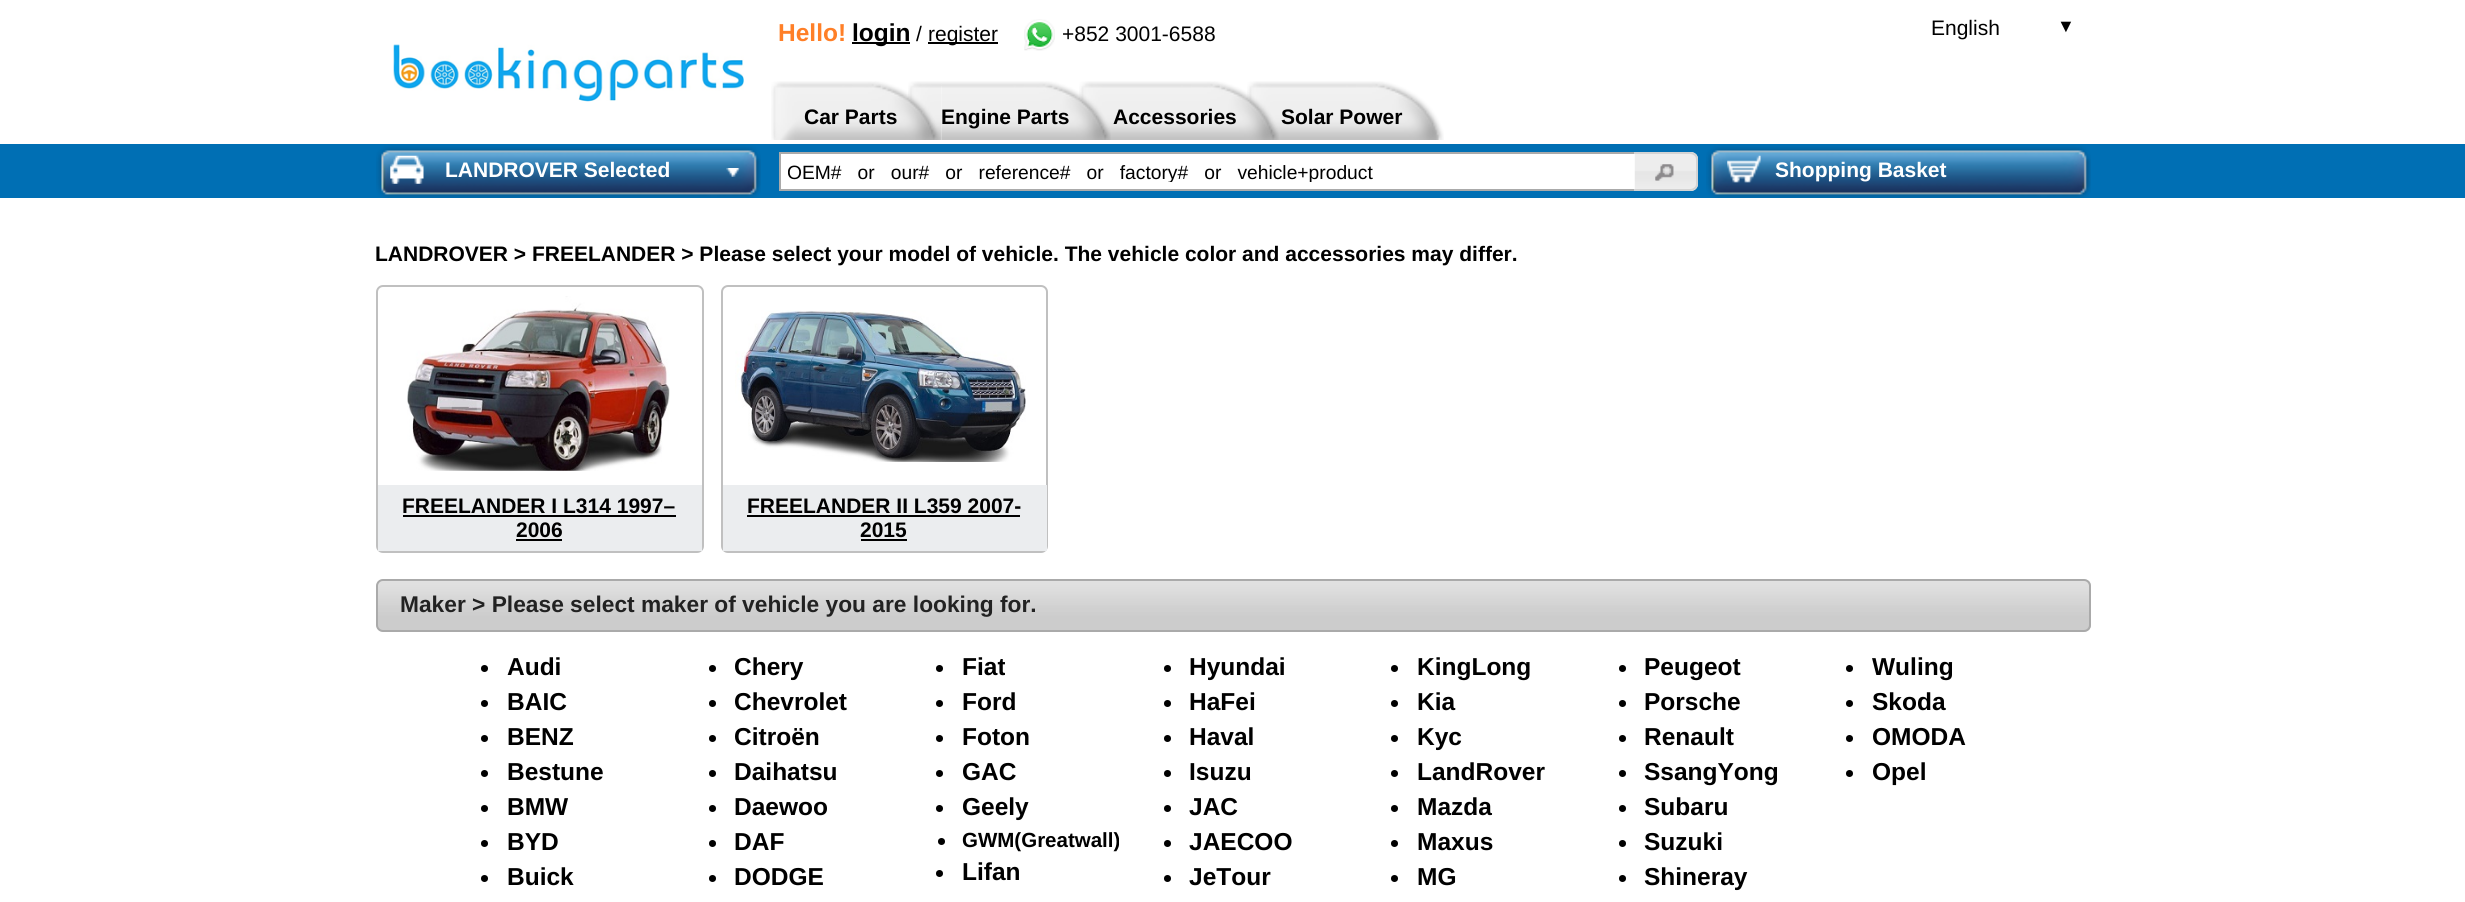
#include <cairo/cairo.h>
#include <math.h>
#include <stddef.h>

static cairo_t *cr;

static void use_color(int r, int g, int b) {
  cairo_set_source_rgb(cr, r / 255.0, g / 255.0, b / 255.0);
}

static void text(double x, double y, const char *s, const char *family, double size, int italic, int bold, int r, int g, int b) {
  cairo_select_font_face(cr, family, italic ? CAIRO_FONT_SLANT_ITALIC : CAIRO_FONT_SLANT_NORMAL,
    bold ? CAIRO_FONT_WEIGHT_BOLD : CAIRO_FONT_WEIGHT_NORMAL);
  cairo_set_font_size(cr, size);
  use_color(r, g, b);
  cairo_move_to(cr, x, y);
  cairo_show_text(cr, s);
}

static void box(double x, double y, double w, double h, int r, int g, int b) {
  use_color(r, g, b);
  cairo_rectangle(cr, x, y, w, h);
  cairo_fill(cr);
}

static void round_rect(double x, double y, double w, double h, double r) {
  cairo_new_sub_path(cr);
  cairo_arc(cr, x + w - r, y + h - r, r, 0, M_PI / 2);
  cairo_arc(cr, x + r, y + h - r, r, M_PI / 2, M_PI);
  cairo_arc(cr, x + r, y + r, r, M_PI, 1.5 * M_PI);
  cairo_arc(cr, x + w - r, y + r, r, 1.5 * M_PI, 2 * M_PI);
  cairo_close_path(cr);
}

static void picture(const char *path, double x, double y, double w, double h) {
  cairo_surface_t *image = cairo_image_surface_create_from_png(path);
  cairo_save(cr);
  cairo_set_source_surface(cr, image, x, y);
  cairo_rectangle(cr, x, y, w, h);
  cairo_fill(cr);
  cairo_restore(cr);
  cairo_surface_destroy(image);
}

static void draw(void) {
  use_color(255, 255, 255);
  cairo_paint(cr);
  box(852, 42, 58, 2, 0, 0, 0);
  box(928, 42, 70, 2, 0, 0, 0);
  picture("img_01.png", 1024, 19, 31, 32);
  picture("img_02.png", 393, 44, 351, 58);
  picture("img_03.png", 771, 81, 34, 59);
  picture("img_05.png", 908, 81, 34, 59);
  picture("img_04.png", 805, 81, 135, 59);
  picture("img_07.png", 1079, 81, 34, 59);
  picture("img_06.png", 941, 81, 170, 59);
  picture("img_09.png", 1247, 81, 34, 59);
  picture("img_08.png", 1113, 81, 166, 59);
  picture("img_10.png", 1281, 81, 163, 59);
  box(0, 144, 2465, 54, 0, 111, 180);
  picture("img_11.png", 376, 145, 385, 53);
  picture("img_12.png", 390, 155, 34, 29);
  picture("img_13.png", 726, 168, 14, 9);
  box(781, 154, 854, 35, 255, 255, 255);
  box(779, 152, 856, 2, 170, 170, 170);
  box(779, 189, 856, 2, 170, 170, 170);
  box(779, 152, 2, 39, 170, 170, 170);
  use_color(230, 230, 230);
  cairo_new_path(cr);
  cairo_move_to(cr, 1635, 152);
  cairo_line_to(cr, 1691, 152);
  cairo_curve_to(cr, 1695, 152, 1698, 155, 1698, 159);
  cairo_line_to(cr, 1698, 184);
  cairo_curve_to(cr, 1698, 188, 1695, 191, 1691, 191);
  cairo_line_to(cr, 1635, 191);
  cairo_close_path(cr);
  cairo_fill(cr);
  picture("img_14.png", 1634, 152, 64, 39);
  use_color(211, 211, 211);
  cairo_set_fill_rule(cr, CAIRO_FILL_RULE_EVEN_ODD);
  cairo_new_path(cr);
  cairo_move_to(cr, 1634, 152);
  cairo_line_to(cr, 1690, 152);
  cairo_curve_to(cr, 1694, 152, 1698, 155, 1698, 159);
  cairo_line_to(cr, 1698, 184);
  cairo_curve_to(cr, 1698, 188, 1694, 191, 1690, 191);
  cairo_line_to(cr, 1634, 191);
  cairo_close_path(cr);
  cairo_move_to(cr, 1634, 154);
  cairo_line_to(cr, 1690, 154);
  cairo_curve_to(cr, 1693, 154, 1696, 156, 1696, 159);
  cairo_line_to(cr, 1696, 184);
  cairo_curve_to(cr, 1696, 187, 1693, 189, 1690, 189);
  cairo_line_to(cr, 1634, 189);
  cairo_close_path(cr);
  cairo_fill(cr);
  picture("img_15.png", 1655, 164, 19, 17);
  picture("img_16.png", 1655, 164, 19, 17);
  picture("img_17.png", 1706, 145, 385, 53);
  picture("img_18.png", 1727, 155, 34, 28);
  round_rect(377, 286, 326, 266, 6);
  use_color(192, 192, 192);
  cairo_stroke(cr);
  picture("img_19.png", 407, 296, 263, 175);
  box(378, 485, 324, 66, 235, 237, 239);
  box(403, 515, 273, 2, 0, 0, 0);
  box(516, 539, 46, 2, 0, 0, 0);
  round_rect(722, 286, 325, 266, 6);
  use_color(192, 192, 192);
  cairo_stroke(cr);
  picture("img_20.png", 735, 310, 291, 152);
  box(723, 485, 324, 66, 235, 237, 239);
  box(747, 515, 273, 2, 0, 0, 0);
  box(861, 539, 46, 2, 0, 0, 0);
  picture("img_21.png", 376, 579, 1715, 53);
  round_rect(377, 580, 1713, 51, 6);
  use_color(170, 170, 170);
  cairo_stroke(cr);
  use_color(0, 0, 0);
  cairo_arc(cr, 484.5, 668.5, 3.5, 0, 2 * M_PI);
  cairo_fill(cr);
  cairo_arc(cr, 484.5, 703.5, 3.5, 0, 2 * M_PI);
  cairo_fill(cr);
  cairo_arc(cr, 484.5, 738.5, 3.5, 0, 2 * M_PI);
  cairo_fill(cr);
  cairo_arc(cr, 484.5, 773.5, 3.5, 0, 2 * M_PI);
  cairo_fill(cr);
  cairo_arc(cr, 484.5, 808.5, 3.5, 0, 2 * M_PI);
  cairo_fill(cr);
  cairo_arc(cr, 484.5, 843.5, 3.5, 0, 2 * M_PI);
  cairo_fill(cr);
  cairo_arc(cr, 484.5, 878.5, 3.5, 0, 2 * M_PI);
  cairo_fill(cr);
  cairo_arc(cr, 712.5, 668.5, 3.5, 0, 2 * M_PI);
  cairo_fill(cr);
  cairo_arc(cr, 712.5, 703.5, 3.5, 0, 2 * M_PI);
  cairo_fill(cr);
  cairo_arc(cr, 712.5, 738.5, 3.5, 0, 2 * M_PI);
  cairo_fill(cr);
  cairo_arc(cr, 712.5, 773.5, 3.5, 0, 2 * M_PI);
  cairo_fill(cr);
  cairo_arc(cr, 712.5, 808.5, 3.5, 0, 2 * M_PI);
  cairo_fill(cr);
  cairo_arc(cr, 712.5, 843.5, 3.5, 0, 2 * M_PI);
  cairo_fill(cr);
  cairo_arc(cr, 712.5, 878.5, 3.5, 0, 2 * M_PI);
  cairo_fill(cr);
  cairo_arc(cr, 939.5, 668.5, 3.5, 0, 2 * M_PI);
  cairo_fill(cr);
  cairo_arc(cr, 939.5, 703.5, 3.5, 0, 2 * M_PI);
  cairo_fill(cr);
  cairo_arc(cr, 939.5, 738.5, 3.5, 0, 2 * M_PI);
  cairo_fill(cr);
  cairo_arc(cr, 939.5, 773.5, 3.5, 0, 2 * M_PI);
  cairo_fill(cr);
  cairo_arc(cr, 939.5, 808.5, 3.5, 0, 2 * M_PI);
  cairo_fill(cr);
  cairo_arc(cr, 941.5, 841.5, 3.5, 0, 2 * M_PI);
  cairo_fill(cr);
  cairo_arc(cr, 939.5, 873.5, 3.5, 0, 2 * M_PI);
  cairo_fill(cr);
  cairo_arc(cr, 1167.5, 668.5, 3.5, 0, 2 * M_PI);
  cairo_fill(cr);
  cairo_arc(cr, 1167.5, 703.5, 3.5, 0, 2 * M_PI);
  cairo_fill(cr);
  cairo_arc(cr, 1167.5, 738.5, 3.5, 0, 2 * M_PI);
  cairo_fill(cr);
  cairo_arc(cr, 1167.5, 773.5, 3.5, 0, 2 * M_PI);
  cairo_fill(cr);
  cairo_arc(cr, 1167.5, 808.5, 3.5, 0, 2 * M_PI);
  cairo_fill(cr);
  cairo_arc(cr, 1167.5, 843.5, 3.5, 0, 2 * M_PI);
  cairo_fill(cr);
  cairo_arc(cr, 1167.5, 878.5, 3.5, 0, 2 * M_PI);
  cairo_fill(cr);
  cairo_arc(cr, 1394.5, 668.5, 3.5, 0, 2 * M_PI);
  cairo_fill(cr);
  cairo_arc(cr, 1394.5, 703.5, 3.5, 0, 2 * M_PI);
  cairo_fill(cr);
  cairo_arc(cr, 1394.5, 738.5, 3.5, 0, 2 * M_PI);
  cairo_fill(cr);
  cairo_arc(cr, 1394.5, 773.5, 3.5, 0, 2 * M_PI);
  cairo_fill(cr);
  cairo_arc(cr, 1394.5, 808.5, 3.5, 0, 2 * M_PI);
  cairo_fill(cr);
  cairo_arc(cr, 1394.5, 843.5, 3.5, 0, 2 * M_PI);
  cairo_fill(cr);
  cairo_arc(cr, 1394.5, 878.5, 3.5, 0, 2 * M_PI);
  cairo_fill(cr);
  cairo_arc(cr, 1622.5, 668.5, 3.5, 0, 2 * M_PI);
  cairo_fill(cr);
  cairo_arc(cr, 1622.5, 703.5, 3.5, 0, 2 * M_PI);
  cairo_fill(cr);
  cairo_arc(cr, 1622.5, 738.5, 3.5, 0, 2 * M_PI);
  cairo_fill(cr);
  cairo_arc(cr, 1622.5, 773.5, 3.5, 0, 2 * M_PI);
  cairo_fill(cr);
  cairo_arc(cr, 1622.5, 808.5, 3.5, 0, 2 * M_PI);
  cairo_fill(cr);
  cairo_arc(cr, 1622.5, 843.5, 3.5, 0, 2 * M_PI);
  cairo_fill(cr);
  cairo_arc(cr, 1622.5, 878.5, 3.5, 0, 2 * M_PI);
  cairo_fill(cr);
  cairo_arc(cr, 1849.5, 668.5, 3.5, 0, 2 * M_PI);
  cairo_fill(cr);
  cairo_arc(cr, 1849.5, 703.5, 3.5, 0, 2 * M_PI);
  cairo_fill(cr);
  cairo_arc(cr, 1849.5, 738.5, 3.5, 0, 2 * M_PI);
  cairo_fill(cr);
  cairo_arc(cr, 1849.5, 773.5, 3.5, 0, 2 * M_PI);
  cairo_fill(cr);
  text(778, 41, "Hello!", "Liberation Sans", 24.5, 0, 1, 255, 127, 39);
  text(852, 41, "login", "Liberation Sans", 24.5, 0, 1, 0, 0, 0);
  text(916, 41, "/", "Liberation Sans", 21, 0, 0, 0, 0, 0);
  text(928, 41, "register", "Liberation Sans", 21, 0, 0, 0, 0, 0);
  text(1062, 41, "+852 3001-6588", "Liberation Sans", 21, 0, 0, 0, 0, 0);
  text(1931, 35, "English", "Liberation Sans", 21, 0, 0, 0, 0, 0);
  text(2057, 32, "▼", "Liberation Sans", 18, 0, 0, 0, 0, 0);
  text(804, 124, "Car Parts", "Liberation Sans", 21, 0, 1, 0, 0, 0);
  text(941, 124, "Engine Parts", "Liberation Sans", 21, 0, 1, 0, 0, 0);
  text(1113, 124, "Accessories", "Liberation Sans", 21, 0, 1, 0, 0, 0);
  text(1281, 124, "Solar Power", "Liberation Sans", 21, 0, 1, 0, 0, 0);
  text(445, 177, "LANDROVER Selected", "Liberation Sans", 21, 0, 1, 255, 255, 255);
  cairo_save(cr);
  cairo_set_fill_rule(cr, CAIRO_FILL_RULE_WINDING);
  cairo_rectangle(cr, 788, 161, 840, 21);
  cairo_clip(cr);
  text(787, 179, "OEM#   or   our#   or   reference#   or   factory#   or   vehicle+product", "Liberation Sans", 19.25, 0, 0, 0, 0, 0);
  cairo_restore(cr);
  text(1775, 177, "Shopping Basket", "Liberation Sans", 21, 0, 1, 255, 255, 255);
  text(375, 261, "LANDROVER > FREELANDER > Please select your model of vehicle. The vehicle color and accessories may differ.", "Liberation Sans", 21, 0, 1, 0, 0, 0);
  text(402, 513, "FREELANDER I L314 1997–", "Liberation Sans", 21, 0, 1, 0, 0, 0);
  text(516, 537, "2006", "Liberation Sans", 21, 0, 1, 0, 0, 0);
  text(747, 513, "FREELANDER II L359 2007-", "Liberation Sans", 21, 0, 1, 0, 0, 0);
  text(860, 537, "2015", "Liberation Sans", 21, 0, 1, 0, 0, 0);
  text(400, 612, "Maker > Please select maker of vehicle you are looking for.", "Liberation Sans", 22.75, 0, 1, 34, 34, 34);
  text(507, 675, "Audi", "Liberation Sans", 24.5, 0, 1, 0, 0, 0);
  text(507, 710, "BAIC", "Liberation Sans", 24.5, 0, 1, 0, 0, 0);
  text(507, 745, "BENZ", "Liberation Sans", 24.5, 0, 1, 0, 0, 0);
  text(507, 780, "Bestune", "Liberation Sans", 24.5, 0, 1, 0, 0, 0);
  text(507, 815, "BMW", "Liberation Sans", 24.5, 0, 1, 0, 0, 0);
  text(507, 850, "BYD", "Liberation Sans", 24.5, 0, 1, 0, 0, 0);
  text(507, 885, "Buick", "Liberation Sans", 24.5, 0, 1, 0, 0, 0);
  text(734, 675, "Chery", "Liberation Sans", 24.5, 0, 1, 0, 0, 0);
  text(734, 710, "Chevrolet", "Liberation Sans", 24.5, 0, 1, 0, 0, 0);
  text(734, 745, "Citroën", "Liberation Sans", 24.5, 0, 1, 0, 0, 0);
  text(734, 780, "Daihatsu", "Liberation Sans", 24.5, 0, 1, 0, 0, 0);
  text(734, 815, "Daewoo", "Liberation Sans", 24.5, 0, 1, 0, 0, 0);
  text(734, 850, "DAF", "Liberation Sans", 24.5, 0, 1, 0, 0, 0);
  text(734, 885, "DODGE", "Liberation Sans", 24.5, 0, 1, 0, 0, 0);
  text(962, 675, "Fiat", "Liberation Sans", 24.5, 0, 1, 0, 0, 0);
  text(962, 710, "Ford", "Liberation Sans", 24.5, 0, 1, 0, 0, 0);
  text(962, 745, "Foton", "Liberation Sans", 24.5, 0, 1, 0, 0, 0);
  text(962, 780, "GAC", "Liberation Sans", 24.5, 0, 1, 0, 0, 0);
  text(962, 815, "Geely", "Liberation Sans", 24.5, 0, 1, 0, 0, 0);
  text(962, 847, "GWM(Greatwall)", "Liberation Sans", 20.5, 0, 1, 0, 0, 0);
  text(962, 880, "Lifan", "Liberation Sans", 24.5, 0, 1, 0, 0, 0);
  text(1189, 675, "Hyundai", "Liberation Sans", 24.5, 0, 1, 0, 0, 0);
  text(1189, 710, "HaFei", "Liberation Sans", 24.5, 0, 1, 0, 0, 0);
  text(1189, 745, "Haval", "Liberation Sans", 24.5, 0, 1, 0, 0, 0);
  text(1189, 780, "Isuzu", "Liberation Sans", 24.5, 0, 1, 0, 0, 0);
  text(1189, 815, "JAC", "Liberation Sans", 24.5, 0, 1, 0, 0, 0);
  text(1189, 850, "JAECOO", "Liberation Sans", 24.5, 0, 1, 0, 0, 0);
  text(1189, 885, "JeTour", "Liberation Sans", 24.5, 0, 1, 0, 0, 0);
  text(1417, 675, "KingLong", "Liberation Sans", 24.5, 0, 1, 0, 0, 0);
  text(1417, 710, "Kia", "Liberation Sans", 24.5, 0, 1, 0, 0, 0);
  text(1417, 745, "Kyc", "Liberation Sans", 24.5, 0, 1, 0, 0, 0);
  text(1417, 780, "LandRover", "Liberation Sans", 24.5, 0, 1, 0, 0, 0);
  text(1417, 815, "Mazda", "Liberation Sans", 24.5, 0, 1, 0, 0, 0);
  text(1417, 850, "Maxus", "Liberation Sans", 24.5, 0, 1, 0, 0, 0);
  text(1417, 885, "MG", "Liberation Sans", 24.5, 0, 1, 0, 0, 0);
  text(1644, 675, "Peugeot", "Liberation Sans", 24.5, 0, 1, 0, 0, 0);
  text(1644, 710, "Porsche", "Liberation Sans", 24.5, 0, 1, 0, 0, 0);
  text(1644, 745, "Renault", "Liberation Sans", 24.5, 0, 1, 0, 0, 0);
  text(1644, 780, "SsangYong", "Liberation Sans", 24.5, 0, 1, 0, 0, 0);
  text(1644, 815, "Subaru", "Liberation Sans", 24.5, 0, 1, 0, 0, 0);
  text(1644, 850, "Suzuki", "Liberation Sans", 24.5, 0, 1, 0, 0, 0);
  text(1644, 885, "Shineray", "Liberation Sans", 24.5, 0, 1, 0, 0, 0);
  text(1872, 675, "Wuling", "Liberation Sans", 24.5, 0, 1, 0, 0, 0);
  text(1872, 710, "Skoda", "Liberation Sans", 24.5, 0, 1, 0, 0, 0);
  text(1872, 745, "OMODA", "Liberation Sans", 24.5, 0, 1, 0, 0, 0);
  text(1872, 780, "Opel", "Liberation Sans", 24.5, 0, 1, 0, 0, 0);
}

int main(void) {
  cairo_surface_t *surface = cairo_image_surface_create(CAIRO_FORMAT_RGB24, 2465, 902);
  cr = cairo_create(surface);
  cairo_font_options_t *options = cairo_font_options_create();
  cairo_font_options_set_hint_metrics(options, CAIRO_HINT_METRICS_OFF);
  cairo_font_options_set_hint_style(options, CAIRO_HINT_STYLE_NONE);
  cairo_set_font_options(cr, options);
  cairo_set_miter_limit(cr, 4);
  draw();
  cairo_surface_write_to_png(surface, "out.png");
  cairo_font_options_destroy(options);
  cairo_destroy(cr);
  cairo_surface_destroy(surface);
  return 0;
}
